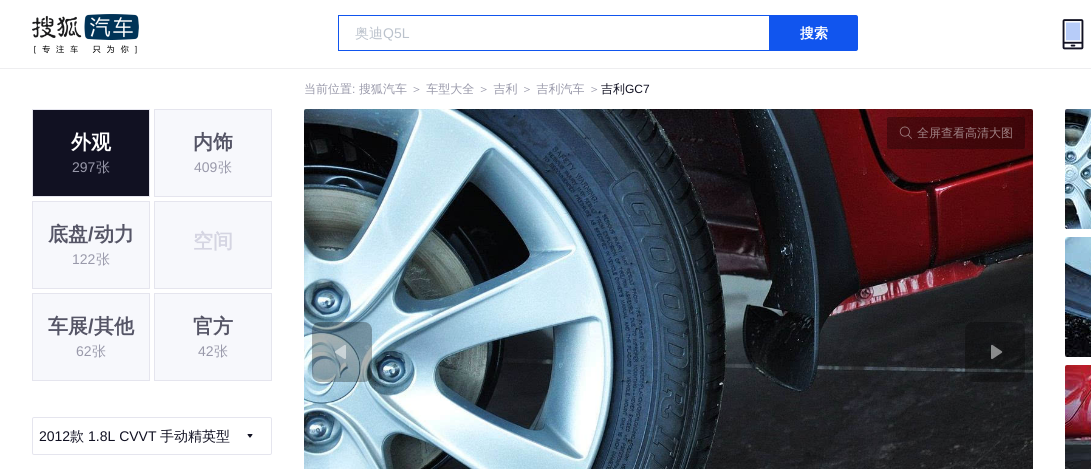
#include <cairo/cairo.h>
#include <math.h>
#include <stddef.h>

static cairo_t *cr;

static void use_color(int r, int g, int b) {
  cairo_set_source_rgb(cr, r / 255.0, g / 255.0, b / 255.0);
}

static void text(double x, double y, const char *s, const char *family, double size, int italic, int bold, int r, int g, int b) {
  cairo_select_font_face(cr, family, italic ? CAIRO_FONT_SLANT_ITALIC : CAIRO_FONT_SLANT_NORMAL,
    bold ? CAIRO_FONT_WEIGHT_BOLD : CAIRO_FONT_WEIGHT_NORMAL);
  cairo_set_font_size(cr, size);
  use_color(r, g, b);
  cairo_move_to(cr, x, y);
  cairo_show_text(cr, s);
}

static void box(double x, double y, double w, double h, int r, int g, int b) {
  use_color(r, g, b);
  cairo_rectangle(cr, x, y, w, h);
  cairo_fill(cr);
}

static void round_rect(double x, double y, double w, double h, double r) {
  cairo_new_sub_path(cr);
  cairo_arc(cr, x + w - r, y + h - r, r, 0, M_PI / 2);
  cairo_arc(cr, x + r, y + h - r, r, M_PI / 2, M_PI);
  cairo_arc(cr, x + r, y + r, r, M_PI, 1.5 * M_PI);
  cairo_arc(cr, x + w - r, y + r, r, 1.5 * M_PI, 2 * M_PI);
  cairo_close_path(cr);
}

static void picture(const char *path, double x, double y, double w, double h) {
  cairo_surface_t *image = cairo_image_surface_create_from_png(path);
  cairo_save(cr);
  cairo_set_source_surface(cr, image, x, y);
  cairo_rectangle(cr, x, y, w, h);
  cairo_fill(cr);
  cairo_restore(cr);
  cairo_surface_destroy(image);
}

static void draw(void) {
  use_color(255, 255, 255);
  cairo_paint(cr);
  box(0, 68, 1091, 1, 238, 238, 240);
  picture("img_01.png", 32, 14, 107, 40);
  cairo_rectangle(cr, 338.5, 15.5, 431, 35);
  use_color(17, 85, 238);
  cairo_set_line_width(cr, 1);
  cairo_stroke(cr);
  cairo_new_path(cr);
  cairo_move_to(cr, 770, 15);
  cairo_line_to(cr, 856, 15);
  cairo_curve_to(cr, 857, 15, 858, 16, 858, 17);
  cairo_line_to(cr, 858, 49);
  cairo_curve_to(cr, 858, 50, 857, 51, 856, 51);
  cairo_line_to(cr, 770, 51);
  cairo_close_path(cr);
  cairo_fill(cr);
  picture("img_02.png", 1062, 19, 22, 31);
  use_color(17, 17, 34);
  cairo_rectangle(cr, 32.5, 109.5, 117, 87);
  cairo_fill_preserve(cr);
  use_color(229, 229, 238);
  cairo_stroke(cr);
  use_color(247, 248, 252);
  cairo_rectangle(cr, 154.5, 109.5, 117, 87);
  cairo_fill_preserve(cr);
  use_color(229, 229, 238);
  cairo_stroke(cr);
  use_color(247, 248, 252);
  cairo_rectangle(cr, 32.5, 201.5, 117, 87);
  cairo_fill_preserve(cr);
  use_color(229, 229, 238);
  cairo_stroke(cr);
  use_color(247, 248, 252);
  cairo_rectangle(cr, 154.5, 201.5, 117, 87);
  cairo_fill_preserve(cr);
  use_color(229, 229, 238);
  cairo_stroke(cr);
  use_color(247, 248, 252);
  cairo_rectangle(cr, 32.5, 293.5, 117, 87);
  cairo_fill_preserve(cr);
  use_color(229, 229, 238);
  cairo_stroke(cr);
  use_color(247, 248, 252);
  cairo_rectangle(cr, 154.5, 293.5, 117, 87);
  cairo_fill_preserve(cr);
  use_color(229, 229, 238);
  cairo_stroke(cr);
  round_rect(32.5, 417.5, 239, 37, 1.5);
  cairo_stroke(cr);
  picture("img_03.png", 247, 434, 6, 4);
  picture("img_04.png", 304, 109, 729, 360);
  cairo_set_source_rgba(cr, 0, 0, 0, 0.3);
  round_rect(887, 117, 138, 32, 2);
  cairo_fill(cr);
  picture("img_05.png", 899, 126, 13, 13);
  round_rect(312, 322, 60, 60, 8);
  cairo_fill(cr);
  picture("img_06.png", 334, 345, 12, 14);
  round_rect(965, 322, 60, 60, 8);
  cairo_fill(cr);
  picture("img_07.png", 991, 344, 12, 16);
  picture("img_08.png", 1065, 109, 26, 120);
  picture("img_09.png", 1065, 237, 26, 120);
  picture("img_10.png", 1065, 365, 26, 104);
  text(355, 38, "奥迪", "WenQuanYi Zen Hei Medium", 14, 0, 0, 187, 194, 204);
  text(383, 38, "Q5L", "Liberation Sans", 14, 0, 0, 187, 194, 204);
  text(800, 38, "搜索", "WenQuanYi Zen Hei", 14, 0, 1, 255, 255, 255);
  text(304, 93, "当前位置", "WenQuanYi Zen Hei Medium", 12, 0, 0, 153, 153, 170);
  text(352, 93, ":", "Liberation Sans", 12, 0, 0, 153, 153, 170);
  text(359, 93, "搜狐汽车 ＞ 车型大全 ＞ 吉利 ＞ 吉利汽车 ＞", "WenQuanYi Zen Hei Medium", 12, 0, 0, 153, 153, 170);
  text(601, 93, "吉利", "WenQuanYi Zen Hei Medium", 12, 0, 0, 17, 17, 34);
  text(625, 93, "GC7", "Liberation Sans", 12, 0, 0, 17, 17, 34);
  text(71, 149, "外观", "WenQuanYi Zen Hei", 20, 0, 1, 255, 255, 255);
  text(72, 172, "297", "Liberation Sans", 14, 0, 0, 153, 153, 170);
  text(96, 172, "张", "WenQuanYi Zen Hei Medium", 14, 0, 0, 153, 153, 170);
  text(193, 149, "内饰", "WenQuanYi Zen Hei", 20, 0, 1, 85, 85, 102);
  text(194, 172, "409", "Liberation Sans", 14, 0, 0, 153, 153, 170);
  text(218, 172, "张", "WenQuanYi Zen Hei Medium", 14, 0, 0, 153, 153, 170);
  text(48, 241, "底盘", "WenQuanYi Zen Hei", 20, 0, 1, 85, 85, 102);
  text(88, 241, "/", "Liberation Sans", 20, 0, 1, 85, 85, 102);
  text(94, 241, "动力", "WenQuanYi Zen Hei", 20, 0, 1, 85, 85, 102);
  text(72, 264, "122", "Liberation Sans", 14, 0, 0, 153, 153, 170);
  text(96, 264, "张", "WenQuanYi Zen Hei Medium", 14, 0, 0, 153, 153, 170);
  text(193, 248, "空间", "WenQuanYi Zen Hei", 20, 0, 1, 213, 213, 226);
  text(48, 333, "车展", "WenQuanYi Zen Hei", 20, 0, 1, 85, 85, 102);
  text(88, 333, "/", "Liberation Sans", 20, 0, 1, 85, 85, 102);
  text(94, 333, "其他", "WenQuanYi Zen Hei", 20, 0, 1, 85, 85, 102);
  text(76, 356, "62", "Liberation Sans", 14, 0, 0, 153, 153, 170);
  text(92, 356, "张", "WenQuanYi Zen Hei Medium", 14, 0, 0, 153, 153, 170);
  text(193, 333, "官方", "WenQuanYi Zen Hei", 20, 0, 1, 85, 85, 102);
  text(198, 356, "42", "Liberation Sans", 14, 0, 0, 153, 153, 170);
  text(214, 356, "张", "WenQuanYi Zen Hei Medium", 14, 0, 0, 153, 153, 170);
  text(39, 441, "2012", "Liberation Sans", 14, 0, 0, 17, 17, 34);
  text(70, 441, "款", "WenQuanYi Zen Hei Medium", 14, 0, 0, 17, 17, 34);
  text(88, 441, "1.8L CVVT", "Liberation Sans", 14, 0, 0, 17, 17, 34);
  text(160, 441, "手动精英型", "WenQuanYi Zen Hei Medium", 14, 0, 0, 17, 17, 34);
  text(917, 137, "全屏查看高清大图", "WenQuanYi Zen Hei Medium", 12, 0, 0, 160, 131, 133);
}

int main(void) {
  cairo_surface_t *surface = cairo_image_surface_create(CAIRO_FORMAT_RGB24, 1091, 469);
  cr = cairo_create(surface);
  cairo_font_options_t *options = cairo_font_options_create();
  cairo_font_options_set_hint_metrics(options, CAIRO_HINT_METRICS_OFF);
  cairo_font_options_set_hint_style(options, CAIRO_HINT_STYLE_NONE);
  cairo_set_font_options(cr, options);
  cairo_set_miter_limit(cr, 4);
  draw();
  cairo_surface_write_to_png(surface, "out.png");
  cairo_font_options_destroy(options);
  cairo_destroy(cr);
  cairo_surface_destroy(surface);
  return 0;
}
